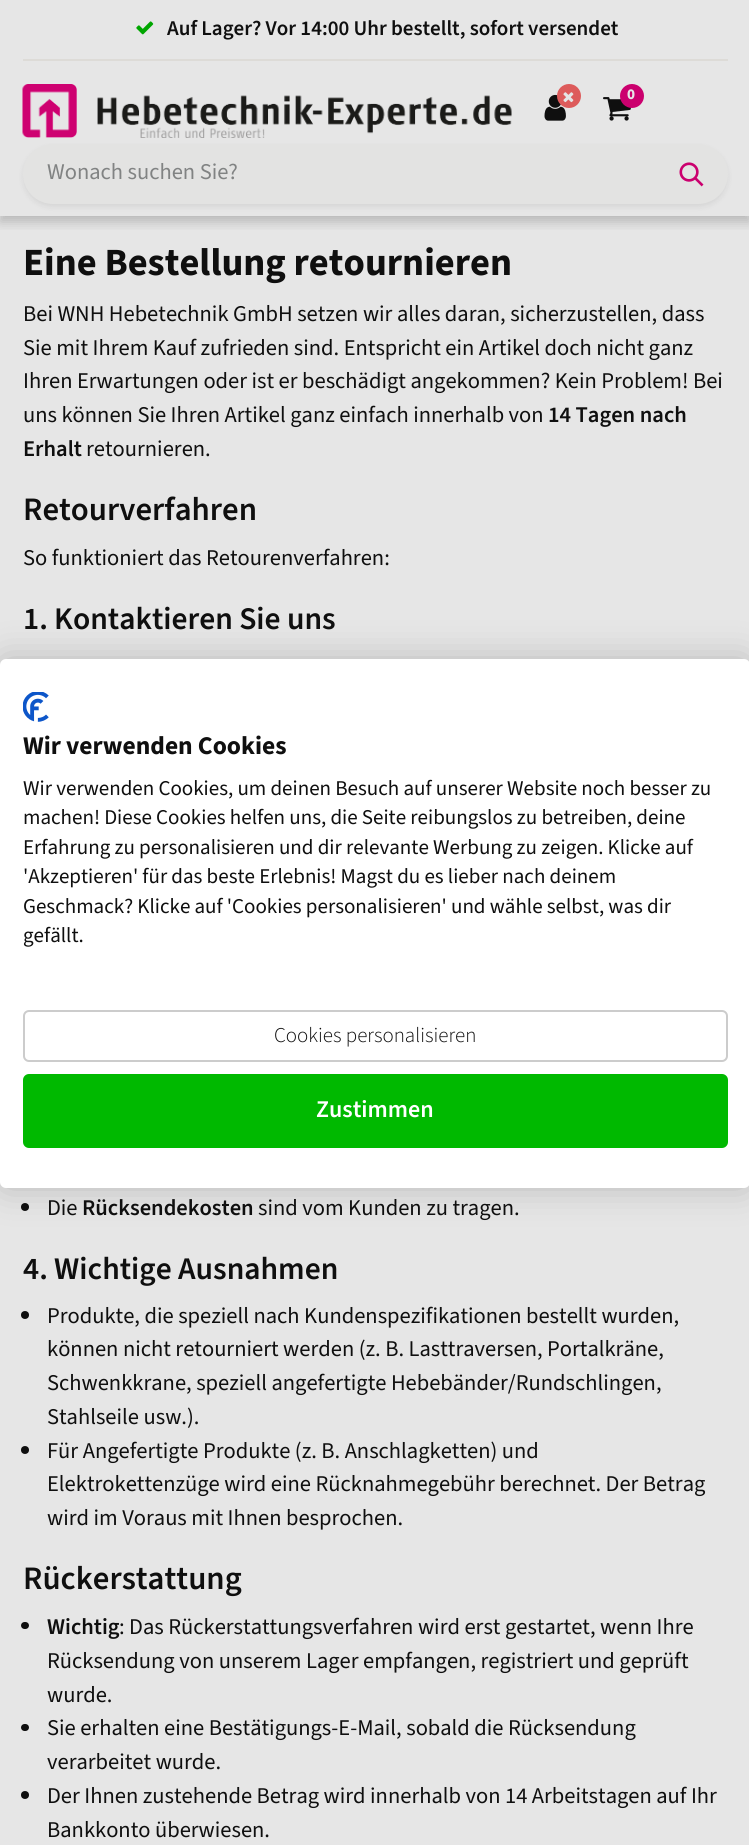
#include <cairo/cairo.h>
#include <math.h>
#include <stddef.h>

static cairo_t *cr;

static void use_color(int r, int g, int b) {
  cairo_set_source_rgb(cr, r / 255.0, g / 255.0, b / 255.0);
}

static void text(double x, double y, const char *s, const char *family, double size, int italic, int bold, int r, int g, int b) {
  cairo_select_font_face(cr, family, italic ? CAIRO_FONT_SLANT_ITALIC : CAIRO_FONT_SLANT_NORMAL,
    bold ? CAIRO_FONT_WEIGHT_BOLD : CAIRO_FONT_WEIGHT_NORMAL);
  cairo_set_font_size(cr, size);
  use_color(r, g, b);
  cairo_move_to(cr, x, y);
  cairo_show_text(cr, s);
}

static void box(double x, double y, double w, double h, int r, int g, int b) {
  use_color(r, g, b);
  cairo_rectangle(cr, x, y, w, h);
  cairo_fill(cr);
}

static void round_rect(double x, double y, double w, double h, double r) {
  cairo_new_sub_path(cr);
  cairo_arc(cr, x + w - r, y + h - r, r, 0, M_PI / 2);
  cairo_arc(cr, x + r, y + h - r, r, M_PI / 2, M_PI);
  cairo_arc(cr, x + r, y + r, r, M_PI, 1.5 * M_PI);
  cairo_arc(cr, x + w - r, y + r, r, 1.5 * M_PI, 2 * M_PI);
  cairo_close_path(cr);
}

static void shadow(double x, double y, double w, double h, double r, double blur, double alpha) {
  cairo_push_group_with_content(cr, CAIRO_CONTENT_ALPHA);
  cairo_set_operator(cr, CAIRO_OPERATOR_SOURCE);
  for (int i = 15; i >= -15 && fmin(w, h) + blur * i / 3 > 0; i -= 2) {
    double e = blur * i / 6;
    cairo_set_source_rgba(cr, 0, 0, 0, alpha * erfc((i - 1) / 8.5) / 2);
    round_rect(x - e, y - e, w + 2 * e, h + 2 * e, fmax(0, fmin(r + e + blur * .6, fmin(w, h) / 2 + e)));
    cairo_fill(cr);
  }
  cairo_pattern_t *soft = cairo_pop_group(cr);
  cairo_mask(cr, soft);
  cairo_pattern_destroy(soft);
}

static void picture(const char *path, double x, double y, double w, double h) {
  cairo_surface_t *image = cairo_image_surface_create_from_png(path);
  cairo_save(cr);
  cairo_set_source_surface(cr, image, x, y);
  cairo_rectangle(cr, x, y, w, h);
  cairo_fill(cr);
  cairo_restore(cr);
  cairo_surface_destroy(image);
}

static void draw(void) {
  use_color(230, 230, 230);
  cairo_paint(cr);
  cairo_save(cr);
  cairo_rectangle(cr, 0, 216, 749, 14);
  cairo_clip(cr);
  use_color(0, 0, 0);
  shadow(0, 6, 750, 216, 0, 6, 0.2);
  cairo_restore(cr);
  box(23, 59, 705, 2, 221, 219, 215);
  picture("img_01.png", 136, 21, 18, 14);
  picture("img_02.png", 22, 84, 490, 54);
  picture("img_03.png", 544, 94, 22, 27);
  use_color(221, 91, 91);
  cairo_arc(cr, 569, 96, 12, 0, 2 * M_PI);
  cairo_fill(cr);
  picture("img_04.png", 563, 92, 11, 11);
  picture("img_05.png", 603, 97, 28, 24);
  use_color(203, 0, 110);
  cairo_arc(cr, 632, 96, 12, 0, 2 * M_PI);
  cairo_fill(cr);
  use_color(0, 0, 0);
  shadow(23, 147, 705, 60, 30, 3, 0.07);
  use_color(227, 227, 226);
  round_rect(23, 144, 705, 60, 30);
  cairo_fill(cr);
  picture("img_06.png", 679, 162, 25, 25);
  use_color(15, 15, 15);
  cairo_arc(cr, 25, 1207, 4, 0, 2 * M_PI);
  cairo_fill(cr);
  cairo_arc(cr, 25, 1315, 4, 0, 2 * M_PI);
  cairo_fill(cr);
  cairo_arc(cr, 25, 1450, 4, 0, 2 * M_PI);
  cairo_fill(cr);
  round_rect(21, 1622, 8, 7, 3.5);
  cairo_fill(cr);
  round_rect(21, 1724, 8, 7, 3.5);
  cairo_fill(cr);
  cairo_arc(cr, 25, 1795, 4, 0, 2 * M_PI);
  cairo_fill(cr);
  use_color(0, 0, 0);
  shadow(0, 659, 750, 529, 6, 18, 0.2);
  use_color(255, 255, 255);
  round_rect(0, 659, 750, 529, 6);
  cairo_fill(cr);
  picture("img_07.png", 23, 692, 26, 30);
  round_rect(24, 1011, 703, 50, 5);
  use_color(204, 204, 204);
  cairo_stroke(cr);
  use_color(0, 185, 0);
  round_rect(24, 1075, 703, 72, 5);
  cairo_fill_preserve(cr);
  cairo_stroke(cr);
  text(167, 35, "Auf Lager? Vor 14:00 Uhr bestellt, sofort versendet", "Source Sans 3 SemiBold", 21, 0, 0, 15, 15, 15);
  text(627, 99, "0", "Source Sans 3 ExtraBold", 15, 0, 0, 230, 230, 230);
  text(47, 179, "Wonach suchen Sie?", "Source Sans 3", 22.5, 0, 0, 129, 131, 131);
  text(23, 275, "Eine Bestellung retournieren", "Source Sans 3", 38.5, 0, 1, 15, 15, 15);
  text(23, 321, "Bei WNH Hebetechnik GmbH setzen wir alles daran, sicherzustellen, dass", "Source Sans 3", 22.5, 0, 0, 15, 15, 15);
  text(23, 355, "Sie mit Ihrem Kauf zufrieden sind. Entspricht ein Artikel doch nicht ganz", "Source Sans 3", 22.5, 0, 0, 15, 15, 15);
  text(23, 388, "Ihren Erwartungen oder ist er beschädigt angekommen? Kein Problem! Bei", "Source Sans 3", 22.5, 0, 0, 15, 15, 15);
  text(23, 422, "uns können Sie Ihren Artikel ganz einfach innerhalb von", "Source Sans 3", 22.5, 0, 0, 15, 15, 15);
  text(548, 422, "14 Tagen nach", "Source Sans 3 SemiBold", 22.5, 0, 0, 15, 15, 15);
  text(23, 456, "Erhalt", "Source Sans 3 SemiBold", 22.5, 0, 0, 15, 15, 15);
  text(86, 456, "retournieren.", "Source Sans 3", 22.5, 0, 0, 15, 15, 15);
  text(23, 520, "Retourverfahren", "Source Sans 3 SemiBold", 32.75, 0, 0, 15, 15, 15);
  text(23, 565, "So funktioniert das Retourenverfahren:", "Source Sans 3", 22.5, 0, 0, 15, 15, 15);
  text(23, 629, "1. Kontaktieren Sie uns", "Source Sans 3 SemiBold", 31.5, 0, 0, 15, 15, 15);
  text(47, 1215, "Die", "Source Sans 3", 22.5, 0, 0, 15, 15, 15);
  text(82, 1215, "Rücksendekosten", "Source Sans 3 SemiBold", 22.5, 0, 0, 15, 15, 15);
  text(258, 1215, "sind vom Kunden zu tragen.", "Source Sans 3", 22.5, 0, 0, 15, 15, 15);
  text(23, 1279, "4. Wichtige Ausnahmen", "Source Sans 3 SemiBold", 31.5, 0, 0, 15, 15, 15);
  text(47, 1323, "Produkte, die speziell nach Kundenspezifikationen bestellt wurden,", "Source Sans 3", 22.5, 0, 0, 15, 15, 15);
  text(47, 1356, "können nicht retourniert werden (z. B. Lasttraversen, Portalkräne,", "Source Sans 3", 22.5, 0, 0, 15, 15, 15);
  text(47, 1390, "Schwenkkrane, speziell angefertigte Hebebänder/Rundschlingen,", "Source Sans 3", 22.5, 0, 0, 15, 15, 15);
  text(47, 1424, "Stahlseile usw.).", "Source Sans 3", 22.5, 0, 0, 15, 15, 15);
  text(47, 1458, "Für Angefertigte Produkte (z. B. Anschlagketten) und", "Source Sans 3", 22.5, 0, 0, 15, 15, 15);
  text(47, 1491, "Elektrokettenzüge wird eine Rücknahmegebühr berechnet. Der Betrag", "Source Sans 3", 22.5, 0, 0, 15, 15, 15);
  text(47, 1525, "wird im Voraus mit Ihnen besprochen.", "Source Sans 3", 22.5, 0, 0, 15, 15, 15);
  text(23, 1589, "Rückerstattung", "Source Sans 3 SemiBold", 32.75, 0, 0, 15, 15, 15);
  text(47, 1634, "Wichtig", "Source Sans 3 SemiBold", 22.5, 0, 0, 15, 15, 15);
  text(119, 1634, ": Das Rückerstattungsverfahren wird erst gestartet, wenn Ihre", "Source Sans 3", 22.5, 0, 0, 15, 15, 15);
  text(47, 1668, "Rücksendung von unserem Lager empfangen, registriert und geprüft", "Source Sans 3", 22.5, 0, 0, 15, 15, 15);
  text(47, 1702, "wurde.", "Source Sans 3", 22.5, 0, 0, 15, 15, 15);
  text(47, 1735, "Sie erhalten eine Bestätigungs-E-Mail, sobald die Rücksendung", "Source Sans 3", 22.5, 0, 0, 15, 15, 15);
  text(47, 1769, "verarbeitet wurde.", "Source Sans 3", 22.5, 0, 0, 15, 15, 15);
  text(47, 1803, "Der Ihnen zustehende Betrag wird innerhalb von 14 Arbeitstagen auf Ihr", "Source Sans 3", 22.5, 0, 0, 15, 15, 15);
  text(47, 1837, "Bankkonto überwiesen.", "Source Sans 3", 22.5, 0, 0, 15, 15, 15);
  text(23, 754, "Wir verwenden Cookies", "Source Sans 3", 25.5, 0, 1, 15, 15, 15);
  text(23, 795, "Wir verwenden Cookies, um deinen Besuch auf unserer Website noch besser zu", "Source Sans 3", 21, 0, 0, 15, 15, 15);
  text(23, 824, "machen! Diese Cookies helfen uns, die Seite reibungslos zu betreiben, deine", "Source Sans 3", 21, 0, 0, 15, 15, 15);
  text(23, 854, "Erfahrung zu personalisieren und dir relevante Werbung zu zeigen. Klicke auf", "Source Sans 3", 21, 0, 0, 15, 15, 15);
  text(23, 883, "'Akzeptieren' für das beste Erlebnis! Magst du es lieber nach deinem", "Source Sans 3", 21, 0, 0, 15, 15, 15);
  text(23, 913, "Geschmack? Klicke auf 'Cookies personalisieren' und wähle selbst, was dir", "Source Sans 3", 21, 0, 0, 15, 15, 15);
  text(23, 942, "gefällt.", "Source Sans 3", 21, 0, 0, 15, 15, 15);
  text(274, 1042, "Cookies personalisieren", "Source Sans 3 Light", 21, 0, 0, 15, 15, 15);
  text(316, 1117, "Zustimmen", "Source Sans 3 SemiBold", 24, 0, 0, 255, 255, 255);
}

int main(void) {
  cairo_surface_t *surface = cairo_image_surface_create(CAIRO_FORMAT_RGB24, 749, 1845);
  cr = cairo_create(surface);
  cairo_font_options_t *options = cairo_font_options_create();
  cairo_font_options_set_hint_metrics(options, CAIRO_HINT_METRICS_OFF);
  cairo_font_options_set_hint_style(options, CAIRO_HINT_STYLE_NONE);
  cairo_set_font_options(cr, options);
  cairo_set_miter_limit(cr, 4);
  draw();
  cairo_surface_write_to_png(surface, "out.png");
  cairo_font_options_destroy(options);
  cairo_destroy(cr);
  cairo_surface_destroy(surface);
  return 0;
}
